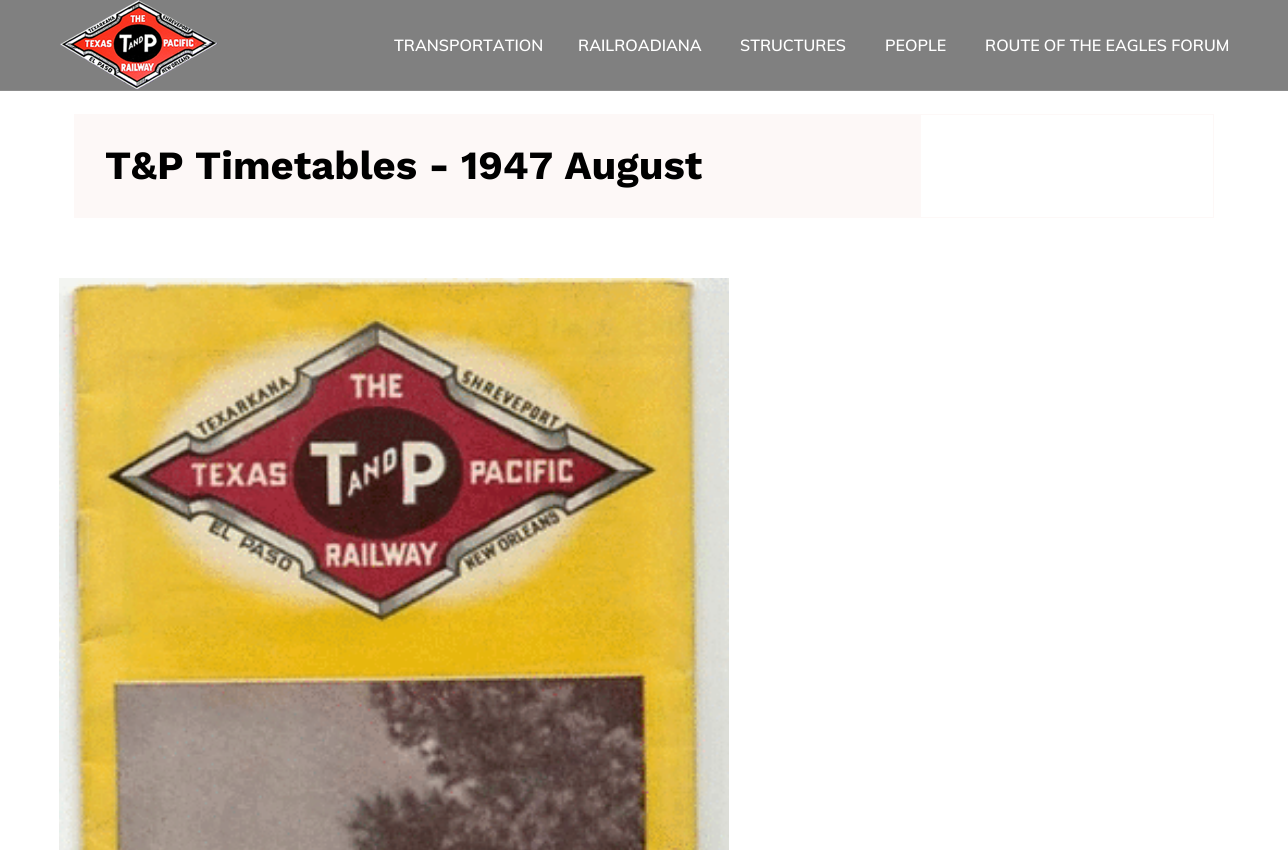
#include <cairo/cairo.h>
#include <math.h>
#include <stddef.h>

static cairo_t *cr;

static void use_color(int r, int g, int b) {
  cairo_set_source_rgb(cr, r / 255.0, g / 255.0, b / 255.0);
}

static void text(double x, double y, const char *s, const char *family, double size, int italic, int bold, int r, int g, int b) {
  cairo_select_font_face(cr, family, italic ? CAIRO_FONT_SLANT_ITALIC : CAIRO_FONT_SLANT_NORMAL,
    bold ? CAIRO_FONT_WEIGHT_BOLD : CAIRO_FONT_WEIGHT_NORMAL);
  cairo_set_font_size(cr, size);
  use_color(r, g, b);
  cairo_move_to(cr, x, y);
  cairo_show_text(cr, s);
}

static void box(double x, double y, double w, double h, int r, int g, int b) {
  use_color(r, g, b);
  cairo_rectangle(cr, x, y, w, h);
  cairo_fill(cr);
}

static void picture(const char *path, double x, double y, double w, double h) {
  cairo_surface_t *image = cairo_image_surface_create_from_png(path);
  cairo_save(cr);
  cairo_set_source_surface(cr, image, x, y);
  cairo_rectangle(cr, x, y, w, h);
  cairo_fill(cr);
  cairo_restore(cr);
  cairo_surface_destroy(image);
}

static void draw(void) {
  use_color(255, 255, 255);
  cairo_paint(cr);
  box(0, 0, 1288, 90, 128, 128, 128);
  box(0, 90, 1288, 1, 141, 141, 141);
  picture("img_01.png", 60, 0, 158, 90);
  cairo_rectangle(cr, 74.5, 114.5, 1139, 103);
  use_color(253, 248, 247);
  cairo_set_line_width(cr, 1);
  cairo_stroke(cr);
  box(75, 115, 846, 102, 253, 248, 247);
  picture("img_02.png", 59, 278, 670, 572);
  text(394, 51, "TRANSPORTATION", "Muli SemiBold", 16, 0, 0, 255, 255, 255);
  text(578, 51, "RAILROADIANA", "Muli SemiBold", 16, 0, 0, 255, 255, 255);
  text(740, 51, "STRUCTURES", "Muli SemiBold", 16, 0, 0, 255, 255, 255);
  text(885, 51, "PEOPLE", "Muli SemiBold", 16, 0, 0, 255, 255, 255);
  text(985, 51, "ROUTE OF THE EAGLES FORUM", "Muli SemiBold", 16, 0, 0, 255, 255, 255);
  text(105, 179, "T&P Timetables - 1947 August", "Work Sans", 40, 0, 1, 0, 0, 0);
}

int main(void) {
  cairo_surface_t *surface = cairo_image_surface_create(CAIRO_FORMAT_RGB24, 1288, 850);
  cr = cairo_create(surface);
  cairo_font_options_t *options = cairo_font_options_create();
  cairo_font_options_set_hint_metrics(options, CAIRO_HINT_METRICS_OFF);
  cairo_font_options_set_hint_style(options, CAIRO_HINT_STYLE_NONE);
  cairo_set_font_options(cr, options);
  cairo_set_miter_limit(cr, 4);
  draw();
  cairo_surface_write_to_png(surface, "out.png");
  cairo_font_options_destroy(options);
  cairo_destroy(cr);
  cairo_surface_destroy(surface);
  return 0;
}
